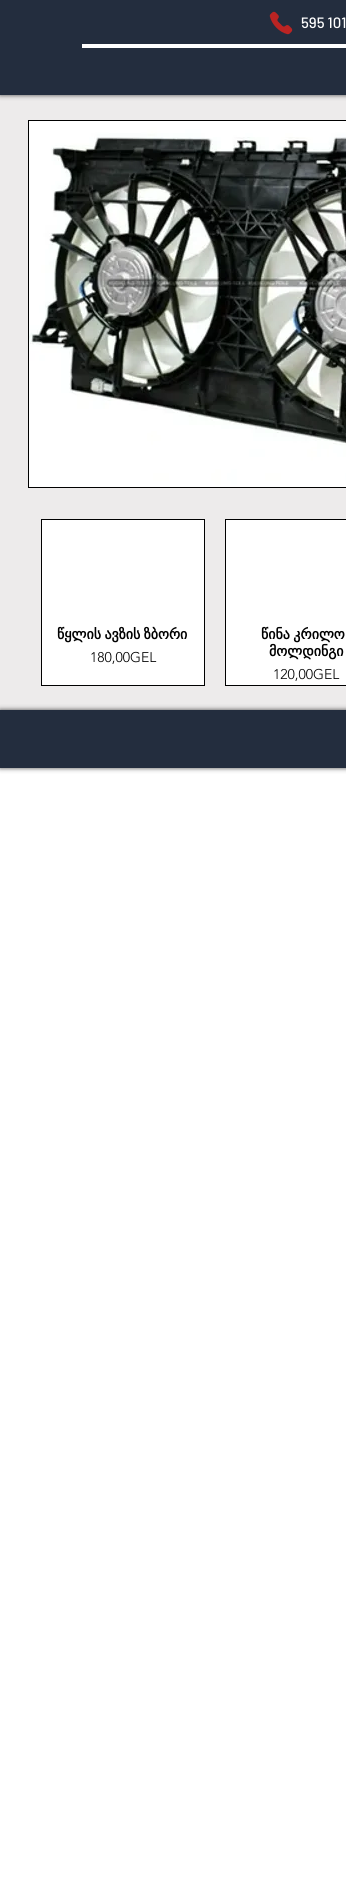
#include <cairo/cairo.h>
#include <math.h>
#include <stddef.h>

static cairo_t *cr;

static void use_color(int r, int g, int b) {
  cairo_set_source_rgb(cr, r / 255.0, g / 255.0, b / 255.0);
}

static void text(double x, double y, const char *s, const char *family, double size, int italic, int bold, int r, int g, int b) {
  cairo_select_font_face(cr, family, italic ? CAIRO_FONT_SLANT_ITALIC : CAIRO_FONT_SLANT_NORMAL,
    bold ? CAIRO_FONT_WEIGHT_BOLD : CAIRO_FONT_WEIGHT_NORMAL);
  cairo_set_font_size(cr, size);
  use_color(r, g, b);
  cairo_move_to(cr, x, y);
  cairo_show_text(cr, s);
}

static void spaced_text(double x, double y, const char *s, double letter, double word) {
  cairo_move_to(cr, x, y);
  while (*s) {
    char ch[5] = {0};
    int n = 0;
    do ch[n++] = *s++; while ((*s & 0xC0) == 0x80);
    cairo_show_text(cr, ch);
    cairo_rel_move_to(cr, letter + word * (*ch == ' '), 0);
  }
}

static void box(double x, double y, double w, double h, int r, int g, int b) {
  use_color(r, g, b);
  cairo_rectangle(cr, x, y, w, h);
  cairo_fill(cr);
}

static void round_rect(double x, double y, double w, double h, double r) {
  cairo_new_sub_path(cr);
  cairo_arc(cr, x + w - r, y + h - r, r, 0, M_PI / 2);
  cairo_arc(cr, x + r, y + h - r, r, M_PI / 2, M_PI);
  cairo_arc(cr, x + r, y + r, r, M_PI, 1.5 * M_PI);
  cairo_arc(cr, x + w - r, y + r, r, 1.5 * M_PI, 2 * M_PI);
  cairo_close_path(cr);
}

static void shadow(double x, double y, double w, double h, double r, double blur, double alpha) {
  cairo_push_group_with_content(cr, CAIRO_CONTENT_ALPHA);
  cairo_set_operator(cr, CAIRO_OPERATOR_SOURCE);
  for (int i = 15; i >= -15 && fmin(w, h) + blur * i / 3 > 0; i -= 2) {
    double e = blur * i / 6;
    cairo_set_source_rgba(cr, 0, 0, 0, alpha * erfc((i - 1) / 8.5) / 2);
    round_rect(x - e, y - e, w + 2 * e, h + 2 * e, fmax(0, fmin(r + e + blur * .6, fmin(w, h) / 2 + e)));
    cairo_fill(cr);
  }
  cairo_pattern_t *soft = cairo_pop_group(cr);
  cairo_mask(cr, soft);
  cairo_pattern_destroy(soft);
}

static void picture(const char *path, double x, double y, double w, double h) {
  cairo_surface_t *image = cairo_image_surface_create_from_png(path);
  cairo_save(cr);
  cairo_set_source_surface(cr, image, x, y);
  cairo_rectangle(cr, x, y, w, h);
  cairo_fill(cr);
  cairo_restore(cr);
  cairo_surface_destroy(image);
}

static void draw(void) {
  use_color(255, 255, 255);
  cairo_paint(cr);
  box(0, 95, 346, 615, 237, 235, 235);
  use_color(0, 0, 0);
  shadow(0, 0, 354, 95, 0, 2.5, 0.7);
  box(0, 0, 346, 95, 35, 45, 62);
  picture("img_01.png", 269, 11, 24, 24);
  box(82, 44, 264, 4, 255, 255, 255);
  cairo_rectangle(cr, 28.5, 120.5, 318, 367);
  use_color(0, 0, 0);
  cairo_set_line_width(cr, 1);
  cairo_stroke(cr);
  picture("img_02.png", 29, 121, 317, 366);
  use_color(255, 255, 255);
  cairo_rectangle(cr, 41.5, 519.5, 163, 166);
  cairo_fill_preserve(cr);
  use_color(0, 0, 0);
  cairo_stroke(cr);
  use_color(255, 255, 255);
  cairo_rectangle(cr, 225.5, 519.5, 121, 166);
  cairo_fill_preserve(cr);
  use_color(0, 0, 0);
  cairo_stroke(cr);
  use_color(0, 0, 0);
  shadow(0, 710, 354, 58, 0, 2.5, 0.7);
  box(0, 710, 346, 58, 35, 45, 62);
  text(301, 28, "595 101", "Barlow Medium", 15, 0, 0, 255, 255, 255);
  cairo_select_font_face(cr, "DejaVu Sans", CAIRO_FONT_SLANT_NORMAL, CAIRO_FONT_WEIGHT_BOLD);
  cairo_set_font_size(cr, 14);
  use_color(0, 0, 0);
  spaced_text(57, 639, "წყლის ავზის ზბორი", 0, -1);
  text(90, 662, "180,00GEL", "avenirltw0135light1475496 Light", 14, 0, 0, 0, 0, 0);
  cairo_select_font_face(cr, "DejaVu Sans", CAIRO_FONT_SLANT_NORMAL, CAIRO_FONT_WEIGHT_BOLD);
  spaced_text(261, 639, "წინა კრილო", 0, -1);
  text(269, 656, "მოლდინგი", "DejaVu Sans", 14, 0, 1, 0, 0, 0);
  text(273, 679, "120,00GEL", "avenirltw0135light1475496 Light", 14, 0, 0, 0, 0, 0);
}

int main(void) {
  cairo_surface_t *surface = cairo_image_surface_create(CAIRO_FORMAT_RGB24, 346, 1894);
  cr = cairo_create(surface);
  cairo_font_options_t *options = cairo_font_options_create();
  cairo_font_options_set_hint_metrics(options, CAIRO_HINT_METRICS_OFF);
  cairo_font_options_set_hint_style(options, CAIRO_HINT_STYLE_NONE);
  cairo_set_font_options(cr, options);
  cairo_set_miter_limit(cr, 4);
  draw();
  cairo_surface_write_to_png(surface, "out.png");
  cairo_font_options_destroy(options);
  cairo_destroy(cr);
  cairo_surface_destroy(surface);
  return 0;
}
